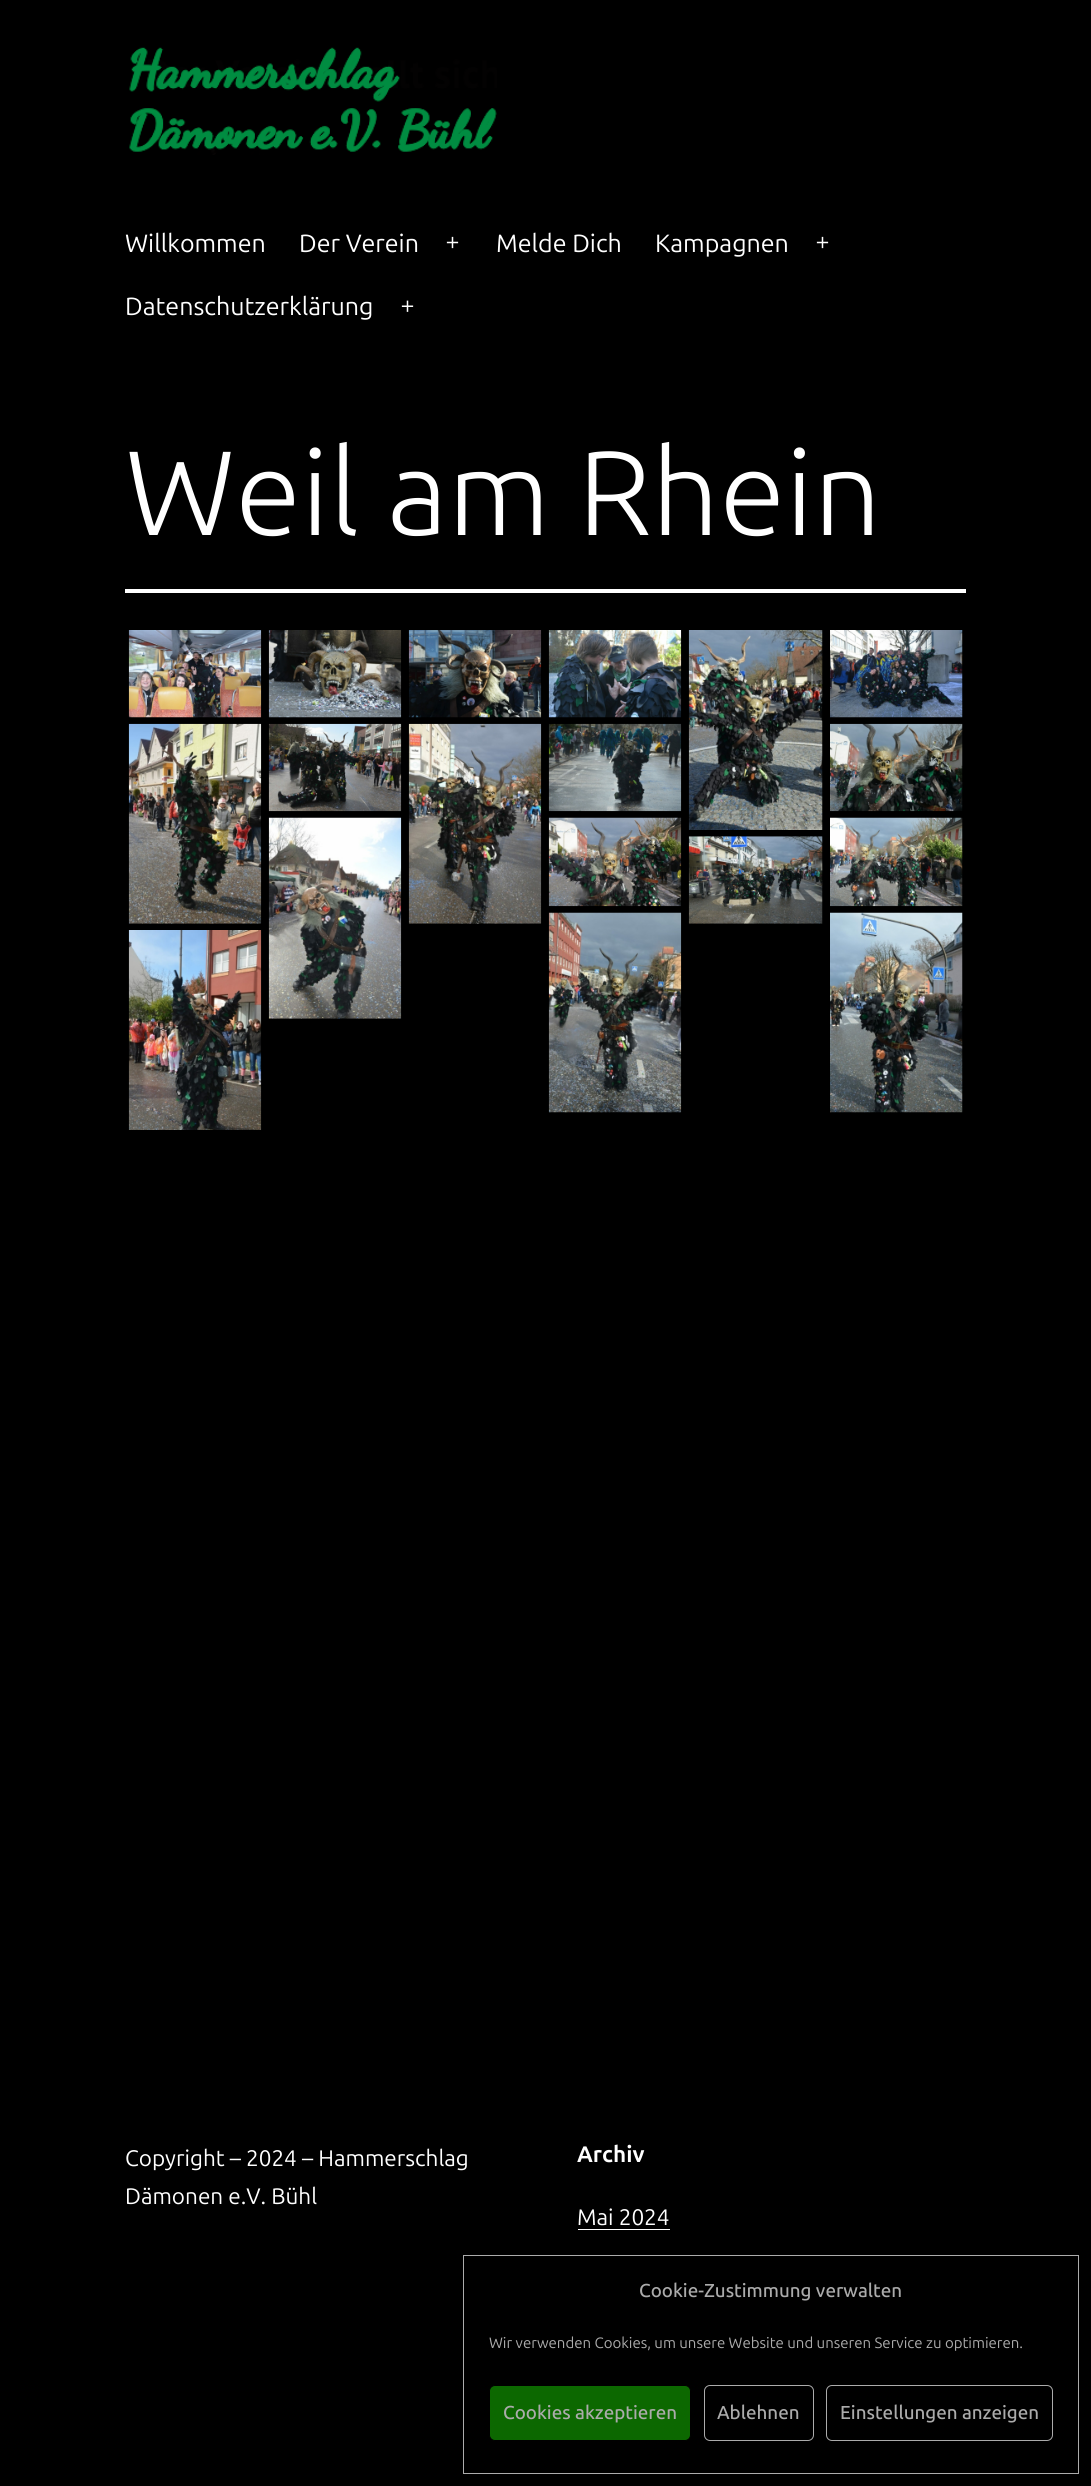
#include <cairo/cairo.h>
#include <math.h>
#include <stddef.h>

static cairo_t *cr;

static void use_color(int r, int g, int b) {
  cairo_set_source_rgb(cr, r / 255.0, g / 255.0, b / 255.0);
}

static void text(double x, double y, const char *s, const char *family, double size, int italic, int bold, int r, int g, int b) {
  cairo_select_font_face(cr, family, italic ? CAIRO_FONT_SLANT_ITALIC : CAIRO_FONT_SLANT_NORMAL,
    bold ? CAIRO_FONT_WEIGHT_BOLD : CAIRO_FONT_WEIGHT_NORMAL);
  cairo_set_font_size(cr, size);
  use_color(r, g, b);
  cairo_move_to(cr, x, y);
  cairo_show_text(cr, s);
}

static void box(double x, double y, double w, double h, int r, int g, int b) {
  use_color(r, g, b);
  cairo_rectangle(cr, x, y, w, h);
  cairo_fill(cr);
}

static void round_rect(double x, double y, double w, double h, double r) {
  cairo_new_sub_path(cr);
  cairo_arc(cr, x + w - r, y + h - r, r, 0, M_PI / 2);
  cairo_arc(cr, x + r, y + h - r, r, M_PI / 2, M_PI);
  cairo_arc(cr, x + r, y + r, r, M_PI, 1.5 * M_PI);
  cairo_arc(cr, x + w - r, y + r, r, 1.5 * M_PI, 2 * M_PI);
  cairo_close_path(cr);
}

static void picture(const char *path, double x, double y, double w, double h) {
  cairo_surface_t *image = cairo_image_surface_create_from_png(path);
  cairo_save(cr);
  cairo_set_source_surface(cr, image, x, y);
  cairo_rectangle(cr, x, y, w, h);
  cairo_fill(cr);
  cairo_restore(cr);
  cairo_surface_destroy(image);
}

static void draw(void) {
  use_color(0, 0, 0);
  cairo_paint(cr);
  picture("img_01.png", 129, 47, 368, 108);
  picture("img_02.png", 446, 236, 13, 13);
  picture("img_02.png", 816, 236, 13, 13);
  picture("img_03.png", 401, 300, 13, 12);
  box(125, 589, 841, 4, 255, 255, 255);
  picture("img_04.png", 128, 630, 134, 88);
  picture("img_05.png", 268, 630, 134, 88);
  picture("img_06.png", 408, 630, 134, 88);
  picture("img_07.png", 548, 630, 134, 88);
  picture("img_08.png", 688, 630, 135, 200);
  picture("img_09.png", 830, 630, 133, 88);
  picture("img_10.png", 128, 723, 134, 201);
  picture("img_11.png", 268, 723, 134, 89);
  picture("img_12.png", 408, 723, 134, 201);
  picture("img_13.png", 548, 723, 134, 89);
  picture("img_14.png", 830, 723, 133, 89);
  picture("img_15.png", 268, 817, 134, 202);
  picture("img_16.png", 548, 817, 134, 90);
  picture("img_17.png", 688, 836, 135, 88);
  picture("img_18.png", 830, 817, 133, 90);
  picture("img_19.png", 128, 930, 134, 200);
  picture("img_20.png", 548, 912, 134, 201);
  picture("img_21.png", 830, 912, 133, 201);
  box(578, 2229, 92, 1, 255, 255, 255);
  cairo_rectangle(cr, 463.5, 2255.5, 615, 218);
  use_color(171, 171, 171);
  cairo_set_line_width(cr, 1);
  cairo_stroke(cr);
  use_color(12, 104, 0);
  round_rect(489.5, 2385.5, 201, 55, 5.5);
  cairo_fill_preserve(cr);
  use_color(0, 0, 0);
  cairo_stroke(cr);
  round_rect(704.5, 2385.5, 109, 55, 5.5);
  use_color(171, 171, 171);
  cairo_stroke(cr);
  round_rect(826.5, 2385.5, 226, 55, 5.5);
  cairo_stroke(cr);
  text(125, 252, "Willkommen", "Ubuntu", 25, 0, 0, 255, 255, 255);
  text(299, 252, "Der Verein", "Ubuntu", 25, 0, 0, 255, 255, 255);
  text(496, 252, "Melde Dich", "Ubuntu", 25, 0, 0, 255, 255, 255);
  text(655, 252, "Kampagnen", "Ubuntu", 25, 0, 0, 255, 255, 255);
  text(125, 315, "Datenschutzerklärung", "Ubuntu", 25, 0, 0, 255, 255, 255);
  text(125, 535, "Weil am Rhein", "Ubuntu Light", 120, 0, 0, 255, 255, 255);
  text(125, 2166, "Copyright – 2024 – Hammerschlag", "Ubuntu", 22.5, 0, 0, 255, 255, 255);
  text(125, 2204, "Dämonen e.V. Bühl", "Ubuntu", 22.5, 0, 0, 255, 255, 255);
  text(577, 2162, "Archiv", "Ubuntu", 22.5, 0, 1, 255, 255, 255);
  text(577, 2225, "Mai 2024", "Ubuntu", 22.5, 0, 0, 255, 255, 255);
  text(639, 2297, "Cookie-Zustimmung verwalten", "Ubuntu Medium", 18.75, 0, 0, 171, 171, 171);
  text(489, 2348, "Wir verwenden Cookies, um unsere Website und unseren Service zu optimieren.", "Ubuntu", 15, 0, 0, 171, 171, 171);
  text(503, 2419, "Cookies akzeptieren", "Ubuntu Medium", 18.75, 0, 0, 171, 171, 171);
  text(717, 2419, "Ablehnen", "Ubuntu Medium", 18.75, 0, 0, 171, 171, 171);
  text(840, 2419, "Einstellungen anzeigen", "Ubuntu Medium", 18.75, 0, 0, 171, 171, 171);
}

int main(void) {
  cairo_surface_t *surface = cairo_image_surface_create(CAIRO_FORMAT_RGB24, 1091, 2486);
  cr = cairo_create(surface);
  cairo_font_options_t *options = cairo_font_options_create();
  cairo_font_options_set_hint_metrics(options, CAIRO_HINT_METRICS_OFF);
  cairo_font_options_set_hint_style(options, CAIRO_HINT_STYLE_NONE);
  cairo_set_font_options(cr, options);
  cairo_set_miter_limit(cr, 4);
  draw();
  cairo_surface_write_to_png(surface, "out.png");
  cairo_font_options_destroy(options);
  cairo_destroy(cr);
  cairo_surface_destroy(surface);
  return 0;
}
